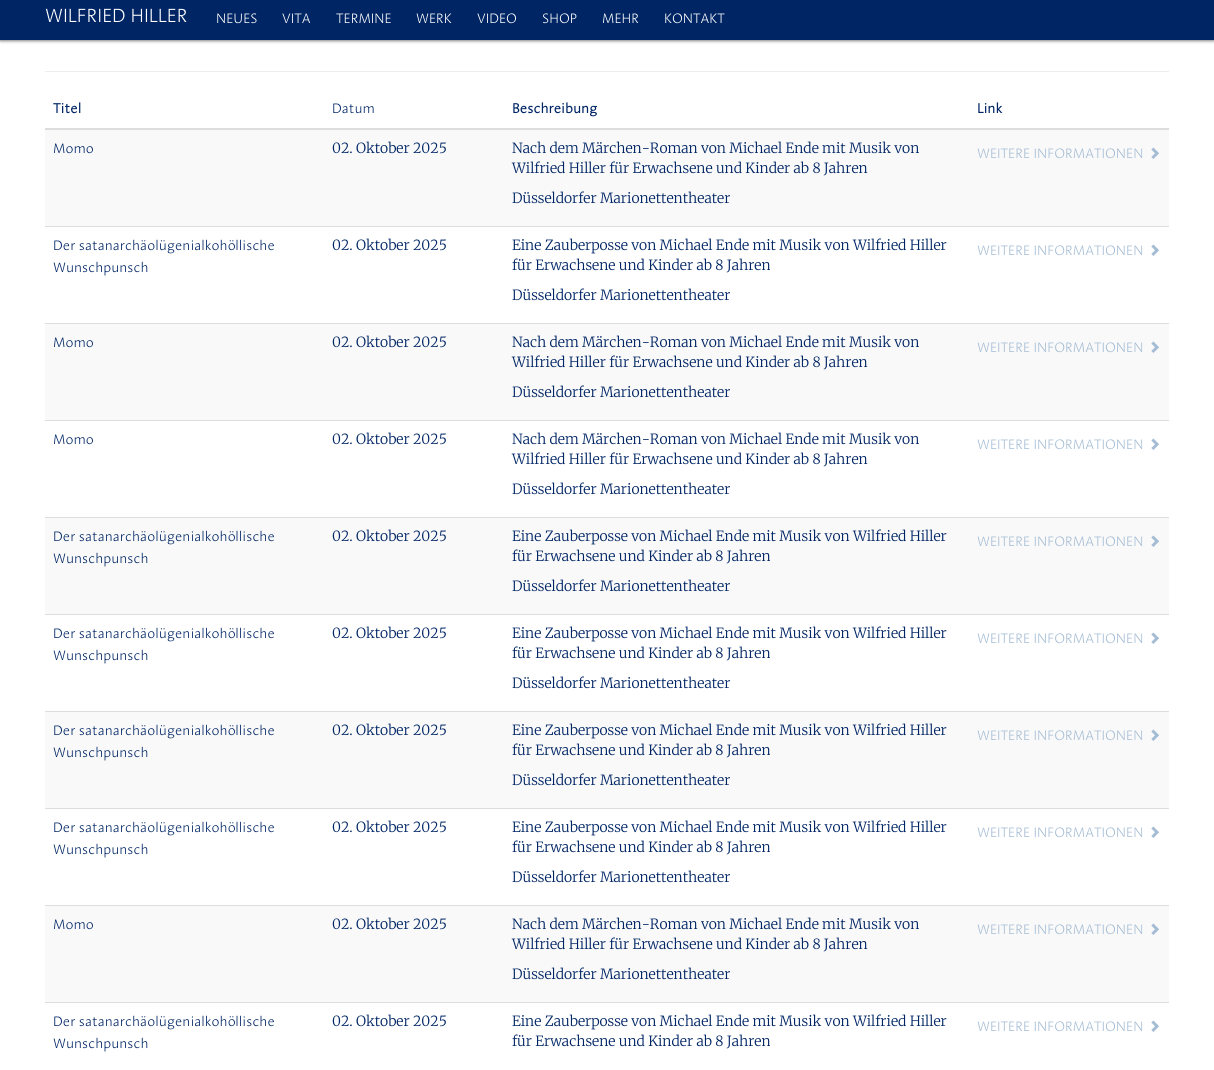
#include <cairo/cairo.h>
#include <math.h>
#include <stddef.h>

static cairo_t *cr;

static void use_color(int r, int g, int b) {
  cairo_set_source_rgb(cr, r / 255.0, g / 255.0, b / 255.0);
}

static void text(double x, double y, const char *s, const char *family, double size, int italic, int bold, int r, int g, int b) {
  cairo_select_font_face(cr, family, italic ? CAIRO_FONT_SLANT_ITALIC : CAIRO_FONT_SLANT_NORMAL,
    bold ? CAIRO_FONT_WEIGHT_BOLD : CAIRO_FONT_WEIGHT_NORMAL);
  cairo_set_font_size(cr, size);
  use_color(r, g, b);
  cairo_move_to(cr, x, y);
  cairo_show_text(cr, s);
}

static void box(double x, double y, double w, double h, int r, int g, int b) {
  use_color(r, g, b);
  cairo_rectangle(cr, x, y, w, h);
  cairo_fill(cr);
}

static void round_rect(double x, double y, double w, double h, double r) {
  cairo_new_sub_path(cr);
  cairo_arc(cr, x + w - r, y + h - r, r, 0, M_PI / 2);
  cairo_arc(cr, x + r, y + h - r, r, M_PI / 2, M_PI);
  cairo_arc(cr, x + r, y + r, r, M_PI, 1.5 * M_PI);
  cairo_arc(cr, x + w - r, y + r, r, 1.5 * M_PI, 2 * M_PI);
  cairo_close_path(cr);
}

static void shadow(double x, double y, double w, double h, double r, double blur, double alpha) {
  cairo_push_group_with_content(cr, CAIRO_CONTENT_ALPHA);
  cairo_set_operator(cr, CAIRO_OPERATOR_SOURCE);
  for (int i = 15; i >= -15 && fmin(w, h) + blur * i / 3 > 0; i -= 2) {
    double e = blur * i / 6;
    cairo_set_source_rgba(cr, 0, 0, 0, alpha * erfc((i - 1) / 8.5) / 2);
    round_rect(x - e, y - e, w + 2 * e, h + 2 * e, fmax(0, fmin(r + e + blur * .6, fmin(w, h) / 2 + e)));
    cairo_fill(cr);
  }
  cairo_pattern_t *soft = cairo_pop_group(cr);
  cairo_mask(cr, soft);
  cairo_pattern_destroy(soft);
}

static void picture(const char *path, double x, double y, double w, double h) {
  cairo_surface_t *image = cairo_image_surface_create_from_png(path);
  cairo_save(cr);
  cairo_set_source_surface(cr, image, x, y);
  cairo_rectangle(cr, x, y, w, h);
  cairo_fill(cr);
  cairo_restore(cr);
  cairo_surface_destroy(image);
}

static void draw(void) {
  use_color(255, 255, 255);
  cairo_paint(cr);
  use_color(0, 0, 0);
  shadow(0, 1, 1214, 40, 0, 1.5, 0.5);
  box(0, 0, 1214, 40, 0, 37, 101);
  box(45, 71, 1124, 1, 238, 238, 238);
  box(45, 128, 1124, 2, 221, 221, 221);
  box(45, 130, 1124, 96, 249, 249, 249);
  picture("img_01.png", 1151, 147, 8, 12);
  box(45, 226, 1124, 1, 221, 221, 221);
  picture("img_02.png", 1151, 244, 8, 12);
  box(45, 324, 1124, 96, 249, 249, 249);
  box(45, 323, 1124, 1, 221, 221, 221);
  picture("img_01.png", 1151, 341, 8, 12);
  box(45, 420, 1124, 1, 221, 221, 221);
  picture("img_02.png", 1151, 438, 8, 12);
  box(45, 518, 1124, 96, 249, 249, 249);
  box(45, 517, 1124, 1, 221, 221, 221);
  picture("img_01.png", 1151, 535, 8, 12);
  box(45, 614, 1124, 1, 221, 221, 221);
  picture("img_02.png", 1151, 632, 8, 12);
  box(45, 712, 1124, 96, 249, 249, 249);
  box(45, 711, 1124, 1, 221, 221, 221);
  picture("img_01.png", 1151, 729, 8, 12);
  box(45, 808, 1124, 1, 221, 221, 221);
  picture("img_02.png", 1151, 826, 8, 12);
  box(45, 906, 1124, 96, 249, 249, 249);
  box(45, 905, 1124, 1, 221, 221, 221);
  picture("img_01.png", 1151, 923, 8, 12);
  box(45, 1002, 1124, 1, 221, 221, 221);
  picture("img_02.png", 1151, 1020, 8, 12);
  text(45, 22, "WILFRIED HILLER", "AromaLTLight", 19.5, 0, 0, 255, 255, 255);
  text(216, 23, "NEUES", "AromaLTLight", 14, 0, 0, 255, 255, 255);
  text(282, 23, "VITA", "AromaLTLight", 14, 0, 0, 255, 255, 255);
  text(336, 23, "TERMINE", "AromaLTLight", 14, 0, 0, 255, 255, 255);
  text(416, 23, "WERK", "AromaLTLight", 14, 0, 0, 255, 255, 255);
  text(477, 23, "VIDEO", "AromaLTLight", 14, 0, 0, 255, 255, 255);
  text(542, 23, "SHOP", "AromaLTLight", 14, 0, 0, 255, 255, 255);
  text(602, 23, "MEHR", "AromaLTLight", 14, 0, 0, 255, 255, 255);
  text(664, 23, "KONTAKT", "AromaLTLight", 14, 0, 0, 255, 255, 255);
  text(53, 113, "Titel", "AromaLTLight", 14, 0, 1, 0, 37, 101);
  text(332, 113, "Datum", "AromaLTLight", 14, 0, 0, 0, 37, 101);
  text(512, 113, "Beschreibung", "AromaLTLight", 14, 0, 1, 0, 37, 101);
  text(977, 113, "Link", "AromaLTLight", 14, 0, 1, 0, 37, 101);
  text(53, 153, "Momo", "AromaLTLight", 14, 0, 0, 0, 37, 101);
  text(332, 153, "02. Oktober 2025", "Merriweather Light", 14, 0, 0, 0, 37, 101);
  text(512, 153, "Nach dem Märchen-Roman von Michael Ende mit Musik von", "Merriweather Light", 14, 0, 0, 0, 37, 101);
  text(512, 173, "Wilfried Hiller für Erwachsene und Kinder ab 8 Jahren", "Merriweather Light", 14, 0, 0, 0, 37, 101);
  text(512, 203, "Düsseldorfer Marionettentheater", "Merriweather Light", 14, 0, 0, 0, 37, 101);
  text(977, 158, "WEITERE INFORMATIONEN", "AromaLTLight", 14, 0, 0, 164, 188, 212);
  text(53, 250, "Der satanarchäolügenialkohöllische", "AromaLTLight", 14, 0, 0, 0, 37, 101);
  text(53, 272, "Wunschpunsch", "AromaLTLight", 14, 0, 0, 0, 37, 101);
  text(332, 250, "02. Oktober 2025", "Merriweather Light", 14, 0, 0, 0, 37, 101);
  text(512, 250, "Eine Zauberposse von Michael Ende mit Musik von Wilfried Hiller", "Merriweather Light", 14, 0, 0, 0, 37, 101);
  text(512, 270, "für Erwachsene und Kinder ab 8 Jahren", "Merriweather Light", 14, 0, 0, 0, 37, 101);
  text(512, 300, "Düsseldorfer Marionettentheater", "Merriweather Light", 14, 0, 0, 0, 37, 101);
  text(977, 255, "WEITERE INFORMATIONEN", "AromaLTLight", 14, 0, 0, 164, 188, 212);
  text(53, 347, "Momo", "AromaLTLight", 14, 0, 0, 0, 37, 101);
  text(332, 347, "02. Oktober 2025", "Merriweather Light", 14, 0, 0, 0, 37, 101);
  text(512, 347, "Nach dem Märchen-Roman von Michael Ende mit Musik von", "Merriweather Light", 14, 0, 0, 0, 37, 101);
  text(512, 367, "Wilfried Hiller für Erwachsene und Kinder ab 8 Jahren", "Merriweather Light", 14, 0, 0, 0, 37, 101);
  text(512, 397, "Düsseldorfer Marionettentheater", "Merriweather Light", 14, 0, 0, 0, 37, 101);
  text(977, 352, "WEITERE INFORMATIONEN", "AromaLTLight", 14, 0, 0, 164, 188, 212);
  text(53, 444, "Momo", "AromaLTLight", 14, 0, 0, 0, 37, 101);
  text(332, 444, "02. Oktober 2025", "Merriweather Light", 14, 0, 0, 0, 37, 101);
  text(512, 444, "Nach dem Märchen-Roman von Michael Ende mit Musik von", "Merriweather Light", 14, 0, 0, 0, 37, 101);
  text(512, 464, "Wilfried Hiller für Erwachsene und Kinder ab 8 Jahren", "Merriweather Light", 14, 0, 0, 0, 37, 101);
  text(512, 494, "Düsseldorfer Marionettentheater", "Merriweather Light", 14, 0, 0, 0, 37, 101);
  text(977, 449, "WEITERE INFORMATIONEN", "AromaLTLight", 14, 0, 0, 164, 188, 212);
  text(53, 541, "Der satanarchäolügenialkohöllische", "AromaLTLight", 14, 0, 0, 0, 37, 101);
  text(53, 563, "Wunschpunsch", "AromaLTLight", 14, 0, 0, 0, 37, 101);
  text(332, 541, "02. Oktober 2025", "Merriweather Light", 14, 0, 0, 0, 37, 101);
  text(512, 541, "Eine Zauberposse von Michael Ende mit Musik von Wilfried Hiller", "Merriweather Light", 14, 0, 0, 0, 37, 101);
  text(512, 561, "für Erwachsene und Kinder ab 8 Jahren", "Merriweather Light", 14, 0, 0, 0, 37, 101);
  text(512, 591, "Düsseldorfer Marionettentheater", "Merriweather Light", 14, 0, 0, 0, 37, 101);
  text(977, 546, "WEITERE INFORMATIONEN", "AromaLTLight", 14, 0, 0, 164, 188, 212);
  text(53, 638, "Der satanarchäolügenialkohöllische", "AromaLTLight", 14, 0, 0, 0, 37, 101);
  text(53, 660, "Wunschpunsch", "AromaLTLight", 14, 0, 0, 0, 37, 101);
  text(332, 638, "02. Oktober 2025", "Merriweather Light", 14, 0, 0, 0, 37, 101);
  text(512, 638, "Eine Zauberposse von Michael Ende mit Musik von Wilfried Hiller", "Merriweather Light", 14, 0, 0, 0, 37, 101);
  text(512, 658, "für Erwachsene und Kinder ab 8 Jahren", "Merriweather Light", 14, 0, 0, 0, 37, 101);
  text(512, 688, "Düsseldorfer Marionettentheater", "Merriweather Light", 14, 0, 0, 0, 37, 101);
  text(977, 643, "WEITERE INFORMATIONEN", "AromaLTLight", 14, 0, 0, 164, 188, 212);
  text(53, 735, "Der satanarchäolügenialkohöllische", "AromaLTLight", 14, 0, 0, 0, 37, 101);
  text(53, 757, "Wunschpunsch", "AromaLTLight", 14, 0, 0, 0, 37, 101);
  text(332, 735, "02. Oktober 2025", "Merriweather Light", 14, 0, 0, 0, 37, 101);
  text(512, 735, "Eine Zauberposse von Michael Ende mit Musik von Wilfried Hiller", "Merriweather Light", 14, 0, 0, 0, 37, 101);
  text(512, 755, "für Erwachsene und Kinder ab 8 Jahren", "Merriweather Light", 14, 0, 0, 0, 37, 101);
  text(512, 785, "Düsseldorfer Marionettentheater", "Merriweather Light", 14, 0, 0, 0, 37, 101);
  text(977, 740, "WEITERE INFORMATIONEN", "AromaLTLight", 14, 0, 0, 164, 188, 212);
  text(53, 832, "Der satanarchäolügenialkohöllische", "AromaLTLight", 14, 0, 0, 0, 37, 101);
  text(53, 854, "Wunschpunsch", "AromaLTLight", 14, 0, 0, 0, 37, 101);
  text(332, 832, "02. Oktober 2025", "Merriweather Light", 14, 0, 0, 0, 37, 101);
  text(512, 832, "Eine Zauberposse von Michael Ende mit Musik von Wilfried Hiller", "Merriweather Light", 14, 0, 0, 0, 37, 101);
  text(512, 852, "für Erwachsene und Kinder ab 8 Jahren", "Merriweather Light", 14, 0, 0, 0, 37, 101);
  text(512, 882, "Düsseldorfer Marionettentheater", "Merriweather Light", 14, 0, 0, 0, 37, 101);
  text(977, 837, "WEITERE INFORMATIONEN", "AromaLTLight", 14, 0, 0, 164, 188, 212);
  text(53, 929, "Momo", "AromaLTLight", 14, 0, 0, 0, 37, 101);
  text(332, 929, "02. Oktober 2025", "Merriweather Light", 14, 0, 0, 0, 37, 101);
  text(512, 929, "Nach dem Märchen-Roman von Michael Ende mit Musik von", "Merriweather Light", 14, 0, 0, 0, 37, 101);
  text(512, 949, "Wilfried Hiller für Erwachsene und Kinder ab 8 Jahren", "Merriweather Light", 14, 0, 0, 0, 37, 101);
  text(512, 979, "Düsseldorfer Marionettentheater", "Merriweather Light", 14, 0, 0, 0, 37, 101);
  text(977, 934, "WEITERE INFORMATIONEN", "AromaLTLight", 14, 0, 0, 164, 188, 212);
  text(53, 1026, "Der satanarchäolügenialkohöllische", "AromaLTLight", 14, 0, 0, 0, 37, 101);
  text(53, 1048, "Wunschpunsch", "AromaLTLight", 14, 0, 0, 0, 37, 101);
  text(332, 1026, "02. Oktober 2025", "Merriweather Light", 14, 0, 0, 0, 37, 101);
  text(512, 1026, "Eine Zauberposse von Michael Ende mit Musik von Wilfried Hiller", "Merriweather Light", 14, 0, 0, 0, 37, 101);
  text(512, 1046, "für Erwachsene und Kinder ab 8 Jahren", "Merriweather Light", 14, 0, 0, 0, 37, 101);
  text(977, 1031, "WEITERE INFORMATIONEN", "AromaLTLight", 14, 0, 0, 164, 188, 212);
}

int main(void) {
  cairo_surface_t *surface = cairo_image_surface_create(CAIRO_FORMAT_RGB24, 1214, 1070);
  cr = cairo_create(surface);
  cairo_font_options_t *options = cairo_font_options_create();
  cairo_font_options_set_hint_metrics(options, CAIRO_HINT_METRICS_OFF);
  cairo_font_options_set_hint_style(options, CAIRO_HINT_STYLE_NONE);
  cairo_set_font_options(cr, options);
  cairo_set_miter_limit(cr, 4);
  draw();
  cairo_surface_write_to_png(surface, "out.png");
  cairo_font_options_destroy(options);
  cairo_destroy(cr);
  cairo_surface_destroy(surface);
  return 0;
}
